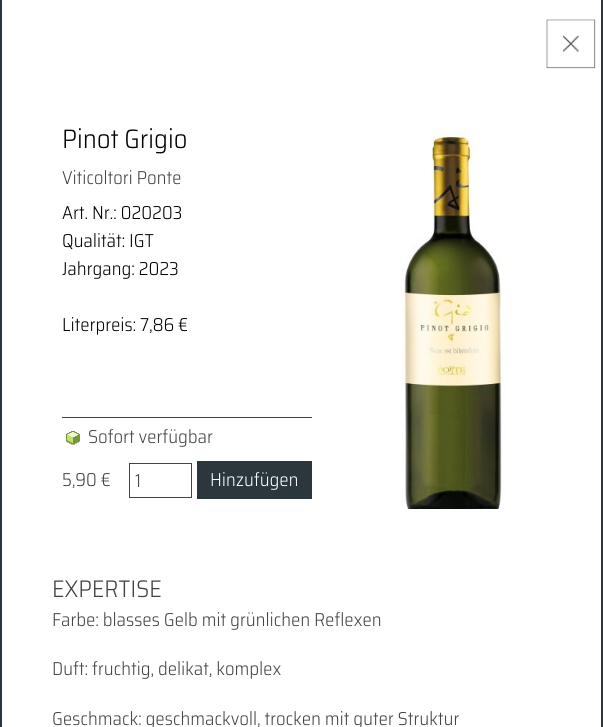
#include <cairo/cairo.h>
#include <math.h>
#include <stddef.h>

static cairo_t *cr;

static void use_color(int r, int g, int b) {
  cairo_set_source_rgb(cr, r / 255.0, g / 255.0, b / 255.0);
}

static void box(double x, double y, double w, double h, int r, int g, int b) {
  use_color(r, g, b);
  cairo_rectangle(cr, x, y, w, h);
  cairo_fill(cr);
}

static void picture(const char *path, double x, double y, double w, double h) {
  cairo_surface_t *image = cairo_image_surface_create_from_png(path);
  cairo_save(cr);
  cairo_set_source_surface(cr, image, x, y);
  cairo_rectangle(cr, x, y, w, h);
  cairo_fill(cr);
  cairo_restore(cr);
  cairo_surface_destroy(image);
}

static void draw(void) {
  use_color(43, 55, 60);
  cairo_paint(cr);
  box(2, 0, 599, 727, 255, 255, 255);
  picture("img_01.png", 546, 19, 50, 50);
  picture("img_02.png", 64, 128, 122, 26);
  picture("img_03.png", 401, 130, 106, 379);
  picture("img_04.png", 62, 170, 119, 15);
  picture("img_05.png", 62, 206, 119, 14);
  picture("img_06.png", 63, 233, 91, 17);
  picture("img_07.png", 62, 261, 116, 18);
  picture("img_08.png", 63, 317, 124, 18);
  box(62, 417, 250, 1, 67, 67, 67);
  picture("img_09.png", 66, 431, 14, 14);
  picture("img_10.png", 89, 429, 124, 18);
  picture("img_11.png", 63, 473, 47, 15);
  cairo_rectangle(cr, 129.5, 463.5, 62, 34);
  cairo_set_line_width(cr, 1);
  cairo_stroke(cr);
  picture("img_12.png", 135, 474, 5, 13);
  box(197, 461, 115, 38, 43, 55, 60);
  picture("img_13.png", 211, 472, 86, 18);
  picture("img_14.png", 54, 580, 107, 18);
  picture("img_15.png", 53, 612, 328, 18);
  picture("img_16.png", 53, 661, 228, 18);
  picture("img_17.png", 53, 711, 406, 16);
}

int main(void) {
  cairo_surface_t *surface = cairo_image_surface_create(CAIRO_FORMAT_RGB24, 603, 727);
  cr = cairo_create(surface);
  cairo_font_options_t *options = cairo_font_options_create();
  cairo_font_options_set_hint_metrics(options, CAIRO_HINT_METRICS_OFF);
  cairo_font_options_set_hint_style(options, CAIRO_HINT_STYLE_NONE);
  cairo_set_font_options(cr, options);
  cairo_set_miter_limit(cr, 4);
  draw();
  cairo_surface_write_to_png(surface, "out.png");
  cairo_font_options_destroy(options);
  cairo_destroy(cr);
  cairo_surface_destroy(surface);
  return 0;
}
